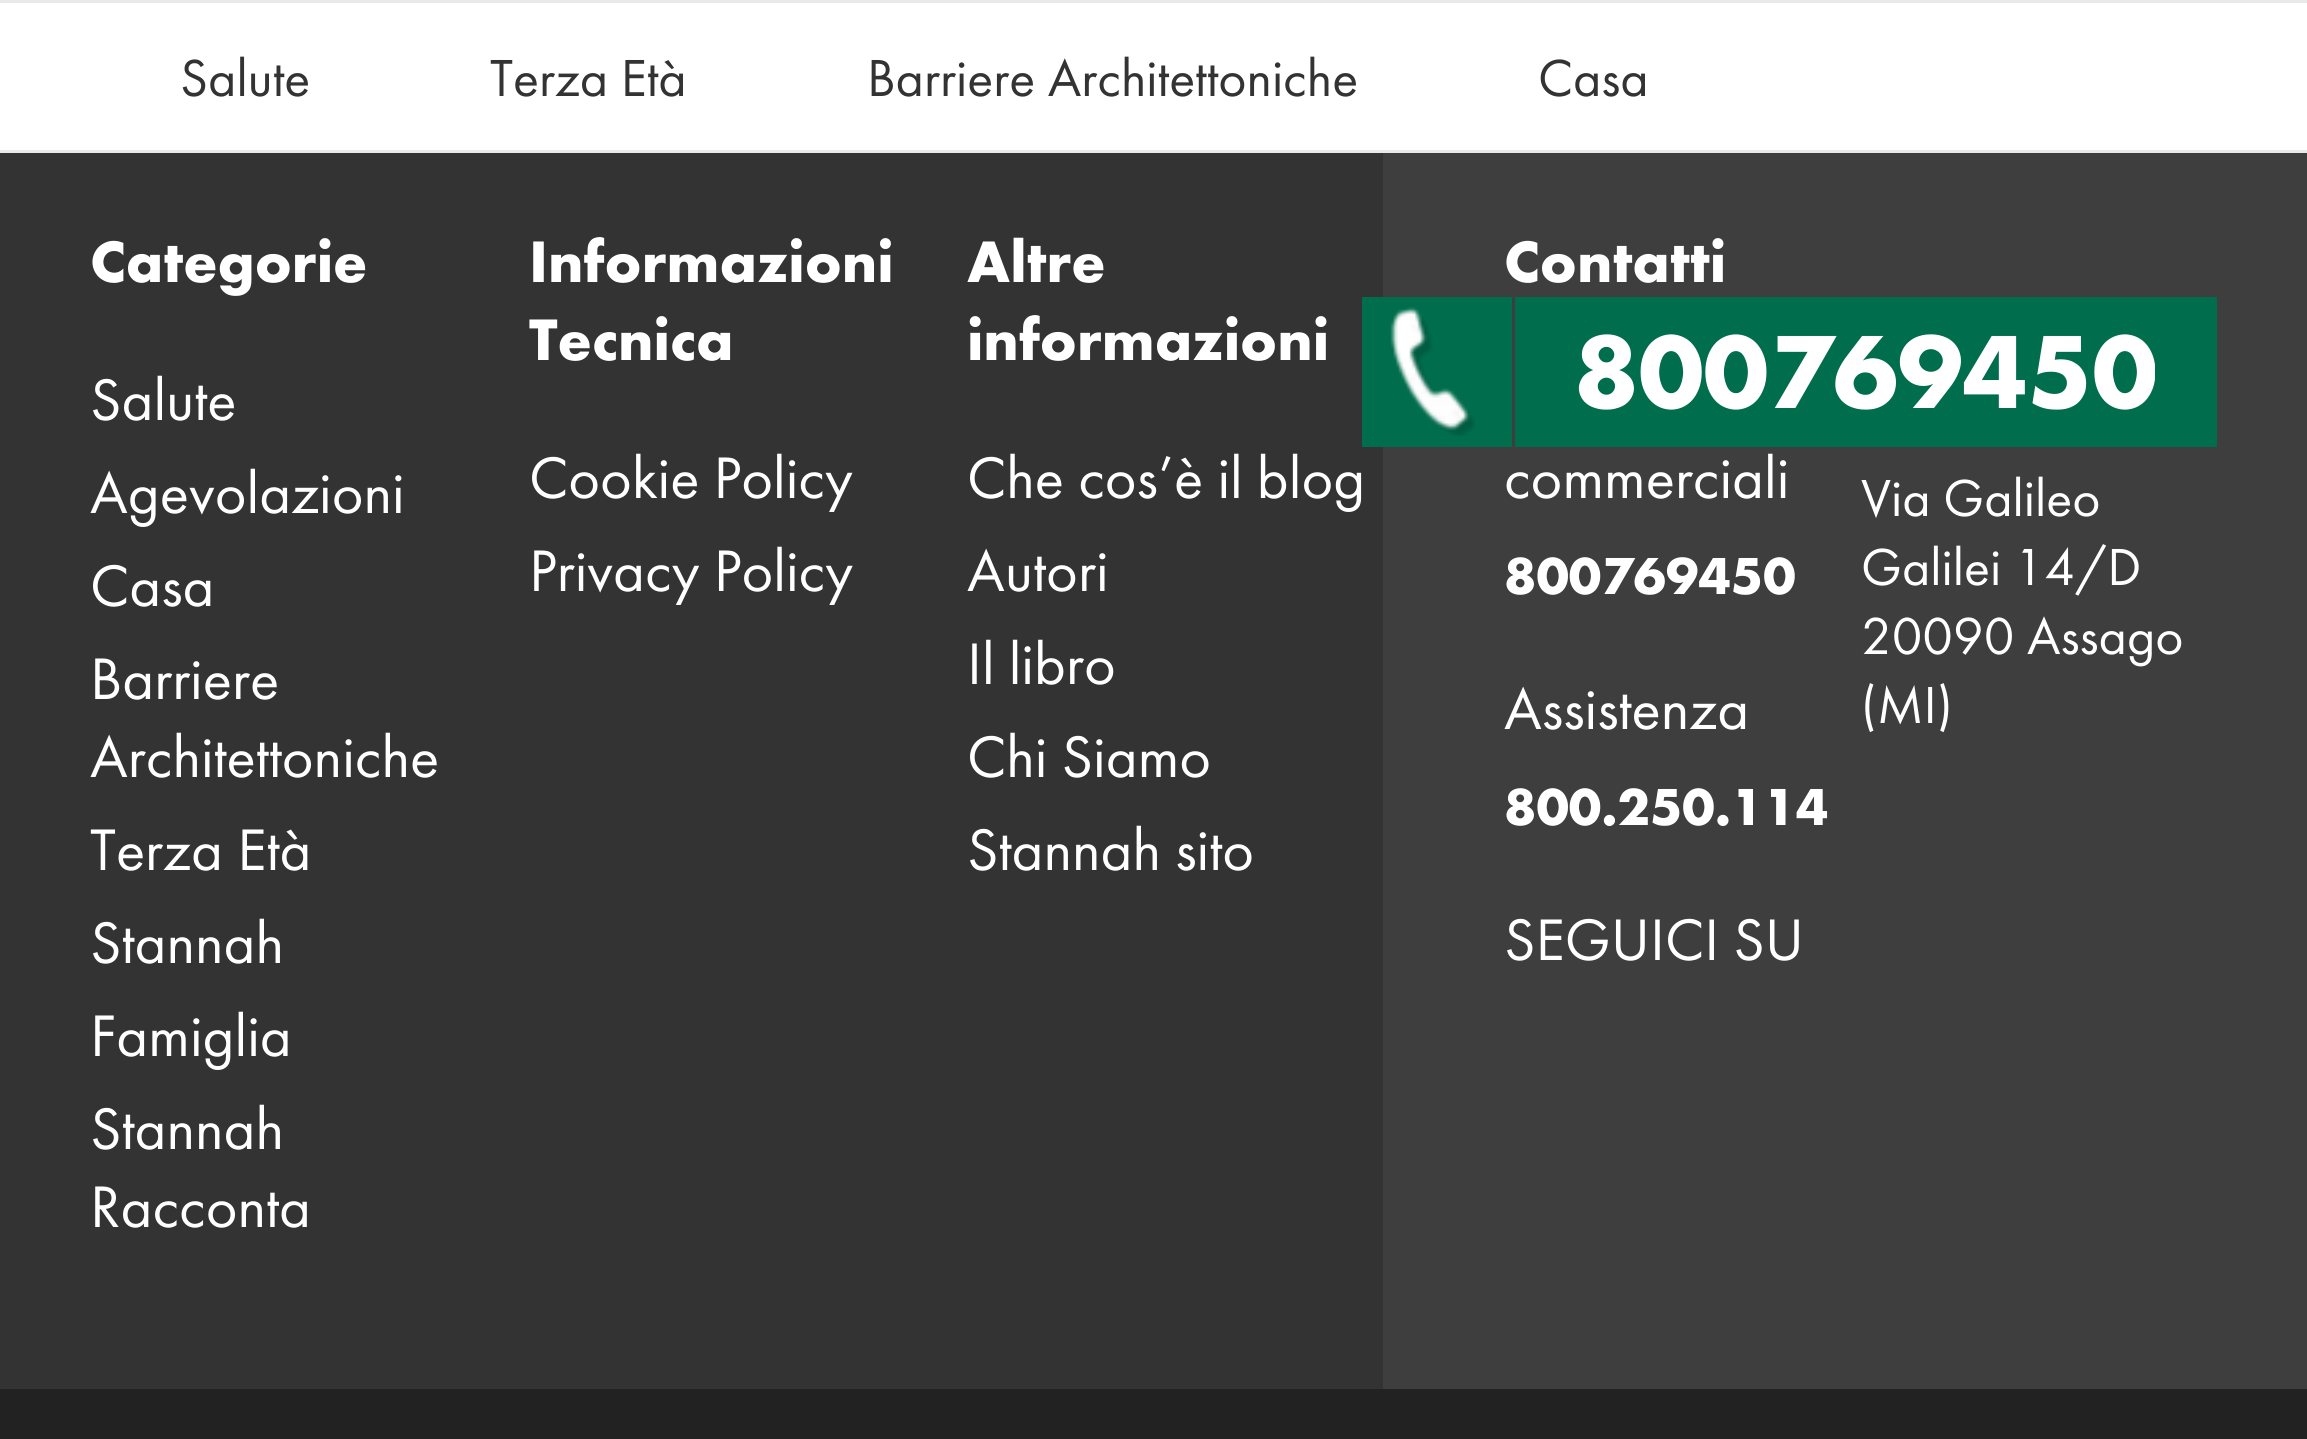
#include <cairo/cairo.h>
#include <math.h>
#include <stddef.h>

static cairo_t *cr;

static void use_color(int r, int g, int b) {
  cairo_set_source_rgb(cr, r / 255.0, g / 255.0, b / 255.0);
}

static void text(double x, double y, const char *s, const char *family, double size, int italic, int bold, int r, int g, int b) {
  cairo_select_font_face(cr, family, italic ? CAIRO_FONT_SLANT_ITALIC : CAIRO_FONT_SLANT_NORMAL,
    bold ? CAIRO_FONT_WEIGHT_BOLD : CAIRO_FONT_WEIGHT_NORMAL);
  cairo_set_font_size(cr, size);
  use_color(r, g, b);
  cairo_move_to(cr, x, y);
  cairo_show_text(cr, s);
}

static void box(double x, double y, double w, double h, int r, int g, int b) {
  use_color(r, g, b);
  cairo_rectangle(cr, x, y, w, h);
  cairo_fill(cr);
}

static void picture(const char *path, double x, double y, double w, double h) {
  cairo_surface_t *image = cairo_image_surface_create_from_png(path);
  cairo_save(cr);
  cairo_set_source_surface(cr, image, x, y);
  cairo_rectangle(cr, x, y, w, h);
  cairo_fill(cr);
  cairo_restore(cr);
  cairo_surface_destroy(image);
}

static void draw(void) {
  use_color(51, 51, 51);
  cairo_paint(cr);
  box(0, 3, 2307, 147, 255, 255, 255);
  box(0, 0, 2307, 3, 233, 233, 233);
  box(0, 150, 2307, 3, 233, 233, 233);
  box(1383, 153, 924, 1236, 62, 62, 62);
  box(1515, 297, 702, 150, 0, 109, 76);
  box(1362, 297, 150, 150, 0, 109, 76);
  picture("img_01.png", 1390, 307, 85, 129);
  box(0, 1389, 2307, 50, 34, 34, 34);
  text(180, 96, "Salute", "Futura PT", 54, 0, 0, 51, 51, 51);
  text(490, 96, "Terza Età", "Futura PT", 54, 0, 0, 51, 51, 51);
  text(867, 96, "Barriere Architettoniche", "Futura PT", 54, 0, 0, 51, 51, 51);
  text(1538, 96, "Casa", "Futura PT", 54, 0, 0, 51, 51, 51);
  text(1574, 408, "800769450", "Futura PT", 108, 0, 1, 255, 255, 255);
  text(90, 282, "Categorie", "Futura PT", 60.75, 0, 1, 255, 255, 255);
  text(90, 420, "Salute", "Futura PT", 60.75, 0, 0, 255, 255, 255);
  text(90, 513, "Agevolazioni", "Futura PT", 60.75, 0, 0, 255, 255, 255);
  text(90, 606, "Casa", "Futura PT", 60.75, 0, 0, 255, 255, 255);
  text(90, 699, "Barriere", "Futura PT", 60.75, 0, 0, 255, 255, 255);
  text(90, 777, "Architettoniche", "Futura PT", 60.75, 0, 0, 255, 255, 255);
  text(90, 870, "Terza Età", "Futura PT", 60.75, 0, 0, 255, 255, 255);
  text(90, 963, "Stannah", "Futura PT", 60.75, 0, 0, 255, 255, 255);
  text(90, 1056, "Famiglia", "Futura PT", 60.75, 0, 0, 255, 255, 255);
  text(90, 1149, "Stannah", "Futura PT", 60.75, 0, 0, 255, 255, 255);
  text(90, 1227, "Racconta", "Futura PT", 60.75, 0, 0, 255, 255, 255);
  text(529, 282, "Informazioni", "Futura PT", 60.75, 0, 1, 255, 255, 255);
  text(529, 360, "Tecnica", "Futura PT", 60.75, 0, 1, 255, 255, 255);
  text(529, 498, "Cookie Policy", "Futura PT", 60.75, 0, 0, 255, 255, 255);
  text(529, 591, "Privacy Policy", "Futura PT", 60.75, 0, 0, 255, 255, 255);
  text(967, 282, "Altre", "Futura PT", 60.75, 0, 1, 255, 255, 255);
  text(967, 360, "informazioni", "Futura PT", 60.75, 0, 1, 255, 255, 255);
  text(967, 498, "Che cos’è il blog", "Futura PT", 60.75, 0, 0, 255, 255, 255);
  text(967, 591, "Autori", "Futura PT", 60.75, 0, 0, 255, 255, 255);
  text(967, 684, "Il libro", "Futura PT", 60.75, 0, 0, 255, 255, 255);
  text(967, 777, "Chi Siamo", "Futura PT", 60.75, 0, 0, 255, 255, 255);
  text(967, 870, "Stannah sito", "Futura PT", 60.75, 0, 0, 255, 255, 255);
  text(1504, 282, "Contatti", "Futura PT", 60.75, 0, 1, 255, 255, 255);
  text(1504, 498, "commerciali", "Futura PT", 60.75, 0, 0, 255, 255, 255);
  text(1504, 594, "800769450", "Futura PT", 54, 0, 1, 255, 255, 255);
  text(1504, 729, "Assistenza", "Futura PT", 60.75, 0, 0, 255, 255, 255);
  text(1504, 825, "800.250.114", "Futura PT", 54, 0, 1, 255, 255, 255);
  text(1504, 960, "SEGUICI SU", "Futura PT", 60.75, 0, 0, 255, 255, 255);
  text(1861, 516, "Via Galileo", "Futura PT", 54, 0, 0, 255, 255, 255);
  text(1861, 585, "Galilei 14/D", "Futura PT", 54, 0, 0, 255, 255, 255);
  text(1861, 654, "20090 Assago", "Futura PT", 54, 0, 0, 255, 255, 255);
  text(1861, 723, "(MI)", "Futura PT", 54, 0, 0, 255, 255, 255);
}

int main(void) {
  cairo_surface_t *surface = cairo_image_surface_create(CAIRO_FORMAT_RGB24, 2307, 1439);
  cr = cairo_create(surface);
  cairo_font_options_t *options = cairo_font_options_create();
  cairo_font_options_set_hint_metrics(options, CAIRO_HINT_METRICS_OFF);
  cairo_font_options_set_hint_style(options, CAIRO_HINT_STYLE_NONE);
  cairo_set_font_options(cr, options);
  cairo_set_miter_limit(cr, 4);
  draw();
  cairo_surface_write_to_png(surface, "out.png");
  cairo_font_options_destroy(options);
  cairo_destroy(cr);
  cairo_surface_destroy(surface);
  return 0;
}
